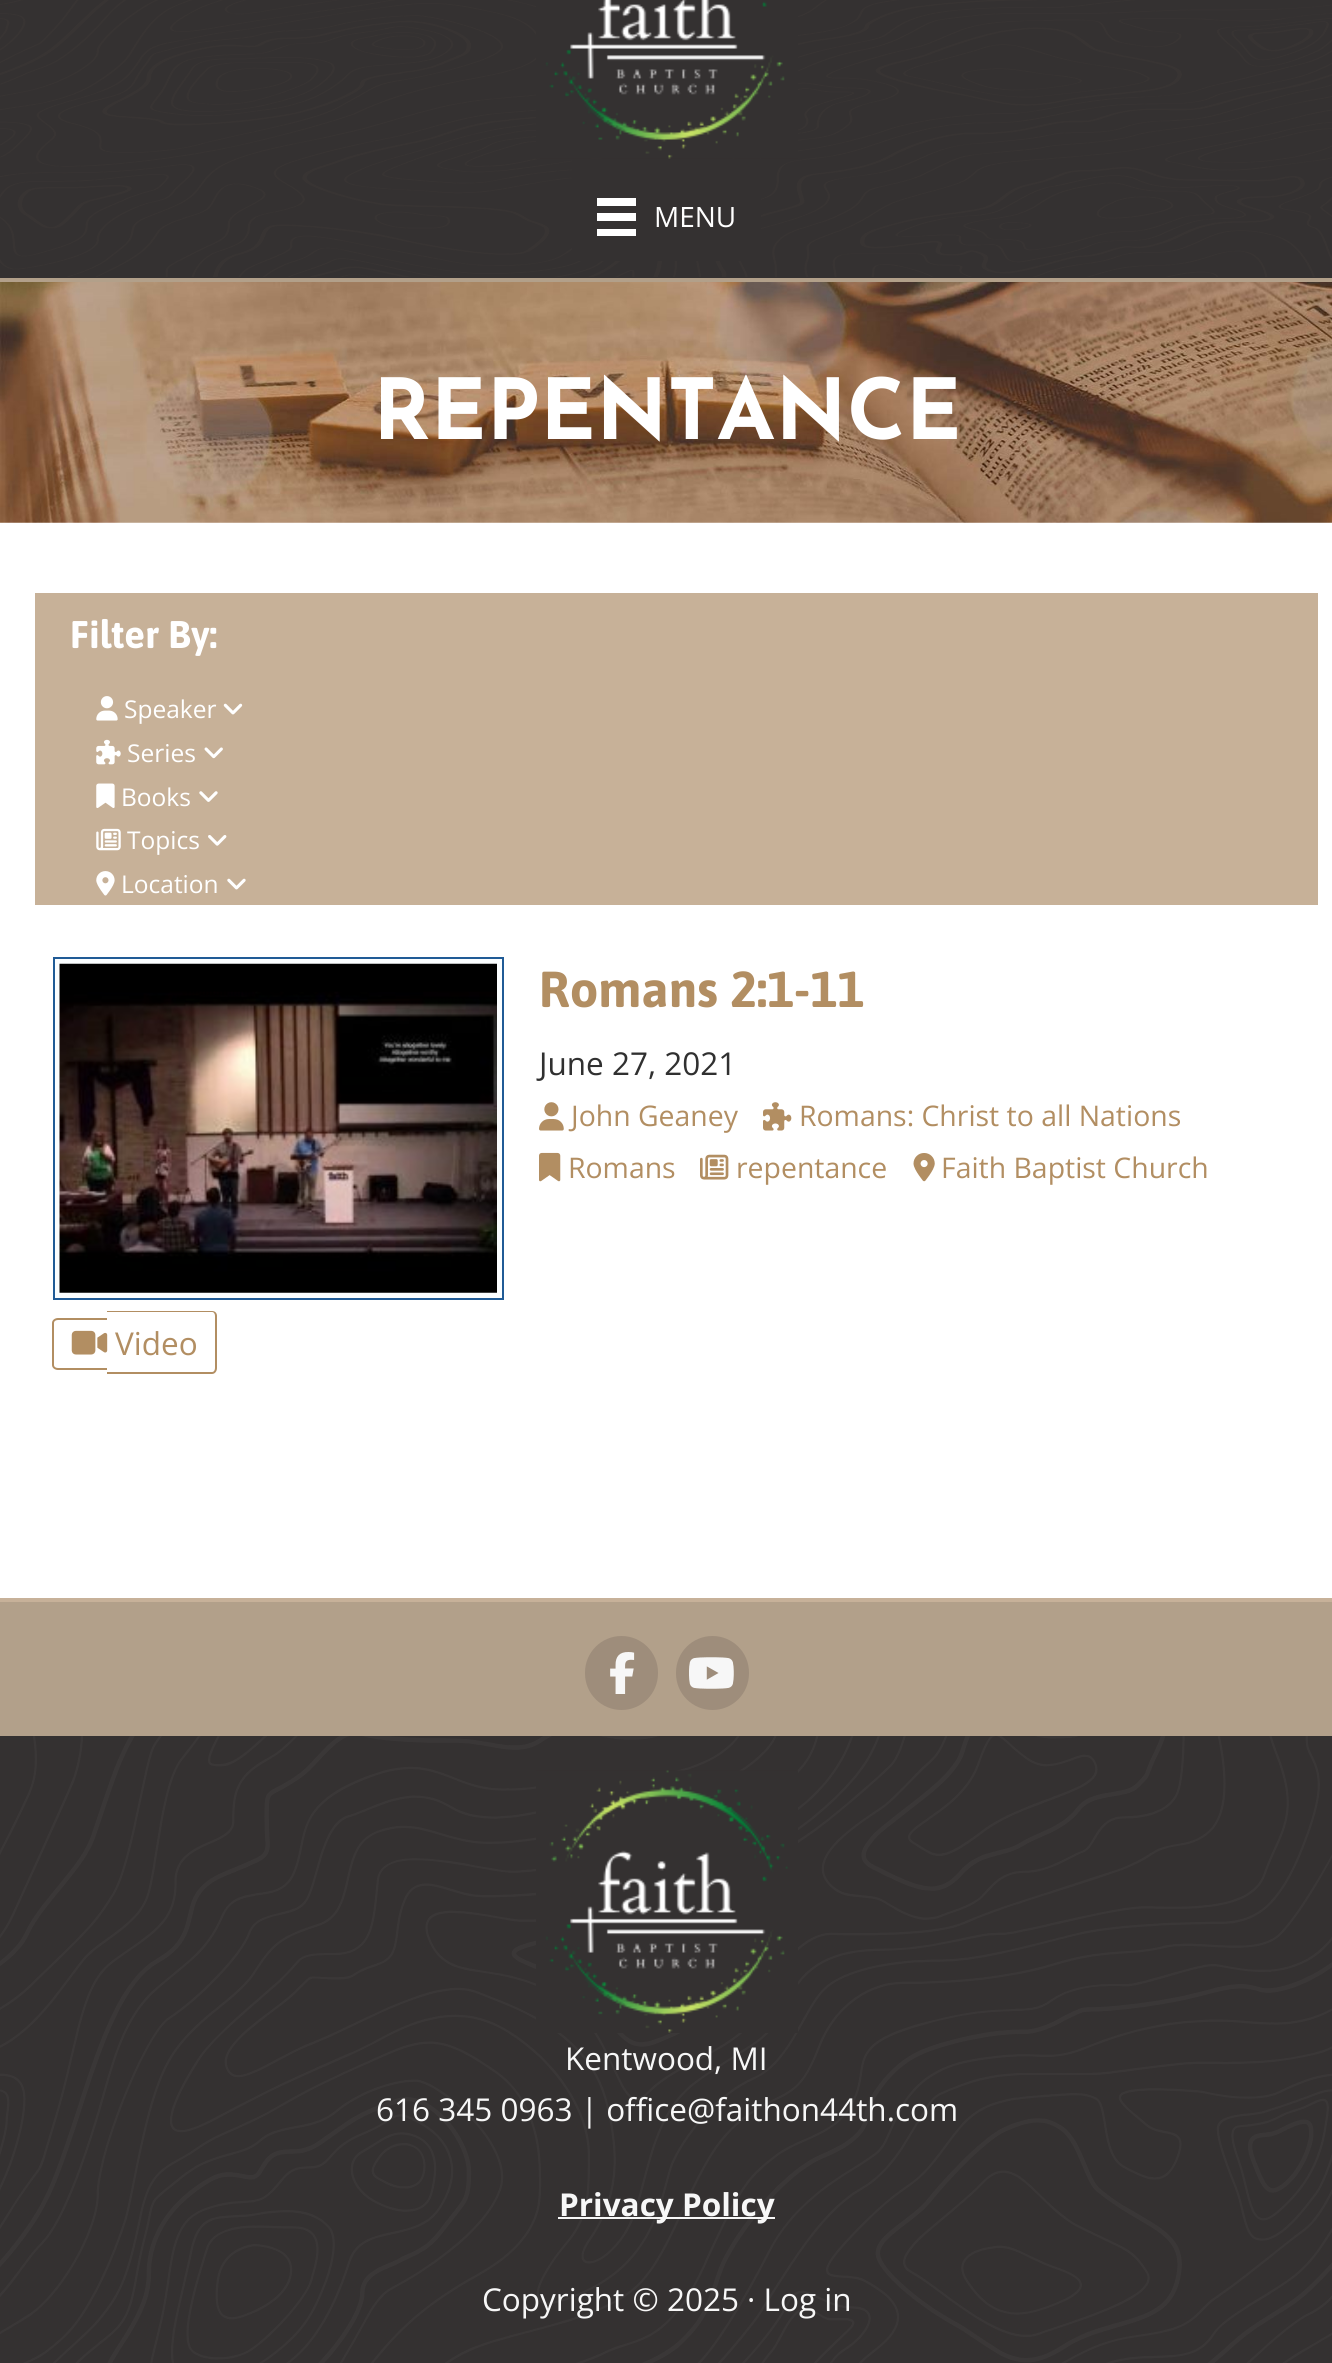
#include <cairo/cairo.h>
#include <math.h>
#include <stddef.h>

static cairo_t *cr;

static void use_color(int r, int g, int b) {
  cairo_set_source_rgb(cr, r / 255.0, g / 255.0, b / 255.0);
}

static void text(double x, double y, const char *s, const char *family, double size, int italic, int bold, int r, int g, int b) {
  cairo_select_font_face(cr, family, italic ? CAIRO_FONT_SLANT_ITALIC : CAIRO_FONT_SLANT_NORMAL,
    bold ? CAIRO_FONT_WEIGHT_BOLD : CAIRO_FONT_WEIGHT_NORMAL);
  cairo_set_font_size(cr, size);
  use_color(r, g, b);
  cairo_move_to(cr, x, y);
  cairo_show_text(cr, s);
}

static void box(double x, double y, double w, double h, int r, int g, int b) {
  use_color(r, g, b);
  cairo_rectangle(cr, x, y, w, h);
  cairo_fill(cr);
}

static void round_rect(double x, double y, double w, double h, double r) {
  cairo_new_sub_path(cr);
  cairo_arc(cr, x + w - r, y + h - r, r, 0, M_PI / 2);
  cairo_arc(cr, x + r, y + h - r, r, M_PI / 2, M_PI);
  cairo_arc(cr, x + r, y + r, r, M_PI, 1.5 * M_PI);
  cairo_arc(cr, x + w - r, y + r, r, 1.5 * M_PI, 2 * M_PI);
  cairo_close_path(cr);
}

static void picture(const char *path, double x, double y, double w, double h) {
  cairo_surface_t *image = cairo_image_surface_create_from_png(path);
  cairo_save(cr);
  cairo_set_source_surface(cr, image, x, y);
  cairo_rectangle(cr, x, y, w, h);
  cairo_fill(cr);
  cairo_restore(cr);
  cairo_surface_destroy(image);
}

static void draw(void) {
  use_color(255, 255, 255);
  cairo_paint(cr);
  box(0, 0, 1332, 278, 52, 49, 49);
  box(0, 278, 1332, 4, 178, 160, 138);
  picture("img_01.png", 0, 0, 1332, 277);
  picture("img_02.png", 536, 0, 262, 159);
  box(572, 159, 189, 102, 52, 49, 49);
  box(597, 198, 39, 8, 255, 255, 255);
  box(597, 213, 39, 8, 255, 255, 255);
  box(597, 229, 39, 7, 255, 255, 255);
  picture("img_03.png", 0, 282, 1332, 241);
  box(35, 593, 1283, 312, 199, 177, 152);
  picture("img_04.png", 96, 696, 22, 25);
  picture("img_05.png", 223, 703, 20, 12);
  picture("img_06.png", 96, 739, 25, 26);
  picture("img_07.png", 204, 747, 19, 12);
  picture("img_08.png", 96, 783, 19, 25);
  picture("img_09.png", 199, 791, 19, 11);
  picture("img_10.png", 96, 828, 25, 23);
  picture("img_11.png", 208, 835, 19, 11);
  picture("img_12.png", 96, 871, 19, 25);
  picture("img_13.png", 227, 878, 19, 12);
  use_color(251, 254, 255);
  cairo_rectangle(cr, 54, 958, 449, 341);
  cairo_fill_preserve(cr);
  use_color(32, 91, 150);
  cairo_stroke(cr);
  picture("img_14.png", 59, 963, 438, 330);
  picture("img_15.png", 539, 1102, 25, 29);
  picture("img_16.png", 763, 1102, 29, 29);
  picture("img_17.png", 539, 1152, 22, 30);
  picture("img_18.png", 700, 1154, 29, 26);
  picture("img_19.png", 913, 1153, 22, 29);
  use_color(178, 142, 98);
  cairo_set_fill_rule(cr, CAIRO_FILL_RULE_EVEN_ODD);
  cairo_new_path(cr);
  cairo_move_to(cr, 58, 1318);
  cairo_line_to(cr, 107, 1318);
  cairo_line_to(cr, 107, 1370);
  cairo_line_to(cr, 58, 1370);
  cairo_curve_to(cr, 55, 1370, 52, 1368, 52, 1365);
  cairo_line_to(cr, 52, 1323);
  cairo_curve_to(cr, 52, 1320, 55, 1318, 58, 1318);
  cairo_close_path(cr);
  cairo_move_to(cr, 58, 1320);
  cairo_line_to(cr, 107, 1320);
  cairo_line_to(cr, 107, 1368);
  cairo_line_to(cr, 58, 1368);
  cairo_curve_to(cr, 56, 1368, 54, 1367, 54, 1365);
  cairo_line_to(cr, 54, 1323);
  cairo_curve_to(cr, 54, 1321, 56, 1320, 58, 1320);
  cairo_close_path(cr);
  cairo_fill(cr);
  cairo_new_path(cr);
  cairo_move_to(cr, 107, 1311);
  cairo_line_to(cr, 212, 1311);
  cairo_curve_to(cr, 215, 1311, 217, 1313, 217, 1316);
  cairo_line_to(cr, 217, 1368);
  cairo_curve_to(cr, 217, 1371, 215, 1374, 212, 1374);
  cairo_line_to(cr, 107, 1374);
  cairo_close_path(cr);
  cairo_move_to(cr, 107, 1312);
  cairo_line_to(cr, 212, 1312);
  cairo_curve_to(cr, 214, 1312, 215, 1314, 215, 1316);
  cairo_line_to(cr, 215, 1368);
  cairo_curve_to(cr, 215, 1370, 214, 1372, 212, 1372);
  cairo_line_to(cr, 107, 1372);
  cairo_close_path(cr);
  cairo_fill(cr);
  picture("img_20.png", 71, 1330, 37, 25);
  box(0, 1602, 1332, 134, 178, 160, 138);
  box(0, 1598, 1332, 4, 199, 177, 153);
  use_color(158, 141, 123);
  round_rect(585, 1636, 73, 74, 36.5);
  cairo_fill(cr);
  picture("img_21.png", 610, 1652, 25, 42);
  round_rect(676, 1636, 73, 74, 36.5);
  cairo_fill(cr);
  picture("img_22.png", 689, 1657, 45, 32);
  box(0, 1736, 1332, 627, 52, 49, 49);
  picture("img_23.png", 0, 1736, 1332, 627);
  picture("img_24.png", 536, 1770, 262, 263);
  box(558, 2217, 217, 2, 247, 247, 247);
  text(654, 227, "MENU", "Open Sans", 28, 0, 0, 255, 255, 255);
  text(373, 439, "REPENTANCE", "Josefin Sans Thin", 84, 0, 0, 255, 255, 255);
  text(70, 648, "Filter By:", "Asap", 38.5, 0, 1, 255, 255, 255);
  text(124, 718, "Speaker", "Open Sans", 24.5, 0, 0, 255, 255, 255);
  text(127, 762, "Series", "Open Sans", 24.5, 0, 0, 255, 255, 255);
  text(121, 806, "Books", "Open Sans", 24.5, 0, 0, 255, 255, 255);
  text(127, 849, "Topics", "Open Sans", 24.5, 0, 0, 255, 255, 255);
  text(121, 893, "Location", "Open Sans", 24.5, 0, 0, 255, 255, 255);
  text(539, 1007, "Romans 2:1-11", "Asap", 50.5, 0, 1, 178, 142, 98);
  text(539, 1075, "June 27, 2021", "Open Sans", 31.5, 0, 0, 48, 48, 48);
  text(571, 1126, "John Geaney", "Open Sans", 28.4, 0, 0, 178, 142, 98);
  text(799, 1126, "Romans: Christ to all Nations", "Open Sans", 28.4, 0, 0, 178, 142, 98);
  text(568, 1178, "Romans", "Open Sans", 28.4, 0, 0, 178, 142, 98);
  text(736, 1178, "repentance", "Open Sans", 28.4, 0, 0, 178, 142, 98);
  text(941, 1178, "Faith Baptist Church", "Open Sans", 28.4, 0, 0, 178, 142, 98);
  text(115, 1355, "Video", "Open Sans", 31.5, 0, 0, 178, 142, 98);
  text(565, 2070, "Kentwood, MI", "Open Sans", 31.5, 0, 0, 247, 247, 247);
  text(376, 2121, "616 345 0963 | office@faithon44th.com", "Open Sans", 31.5, 0, 0, 247, 247, 247);
  text(559, 2216, "Privacy Policy", "Open Sans", 31.5, 0, 1, 247, 247, 247);
  text(482, 2311, "Copyright © 2025 · Log in", "Open Sans", 31.5, 0, 0, 247, 247, 247);
}

int main(void) {
  cairo_surface_t *surface = cairo_image_surface_create(CAIRO_FORMAT_RGB24, 1332, 2363);
  cr = cairo_create(surface);
  cairo_font_options_t *options = cairo_font_options_create();
  cairo_font_options_set_hint_metrics(options, CAIRO_HINT_METRICS_OFF);
  cairo_font_options_set_hint_style(options, CAIRO_HINT_STYLE_NONE);
  cairo_set_font_options(cr, options);
  cairo_set_miter_limit(cr, 4);
  draw();
  cairo_surface_write_to_png(surface, "out.png");
  cairo_font_options_destroy(options);
  cairo_destroy(cr);
  cairo_surface_destroy(surface);
  return 0;
}
